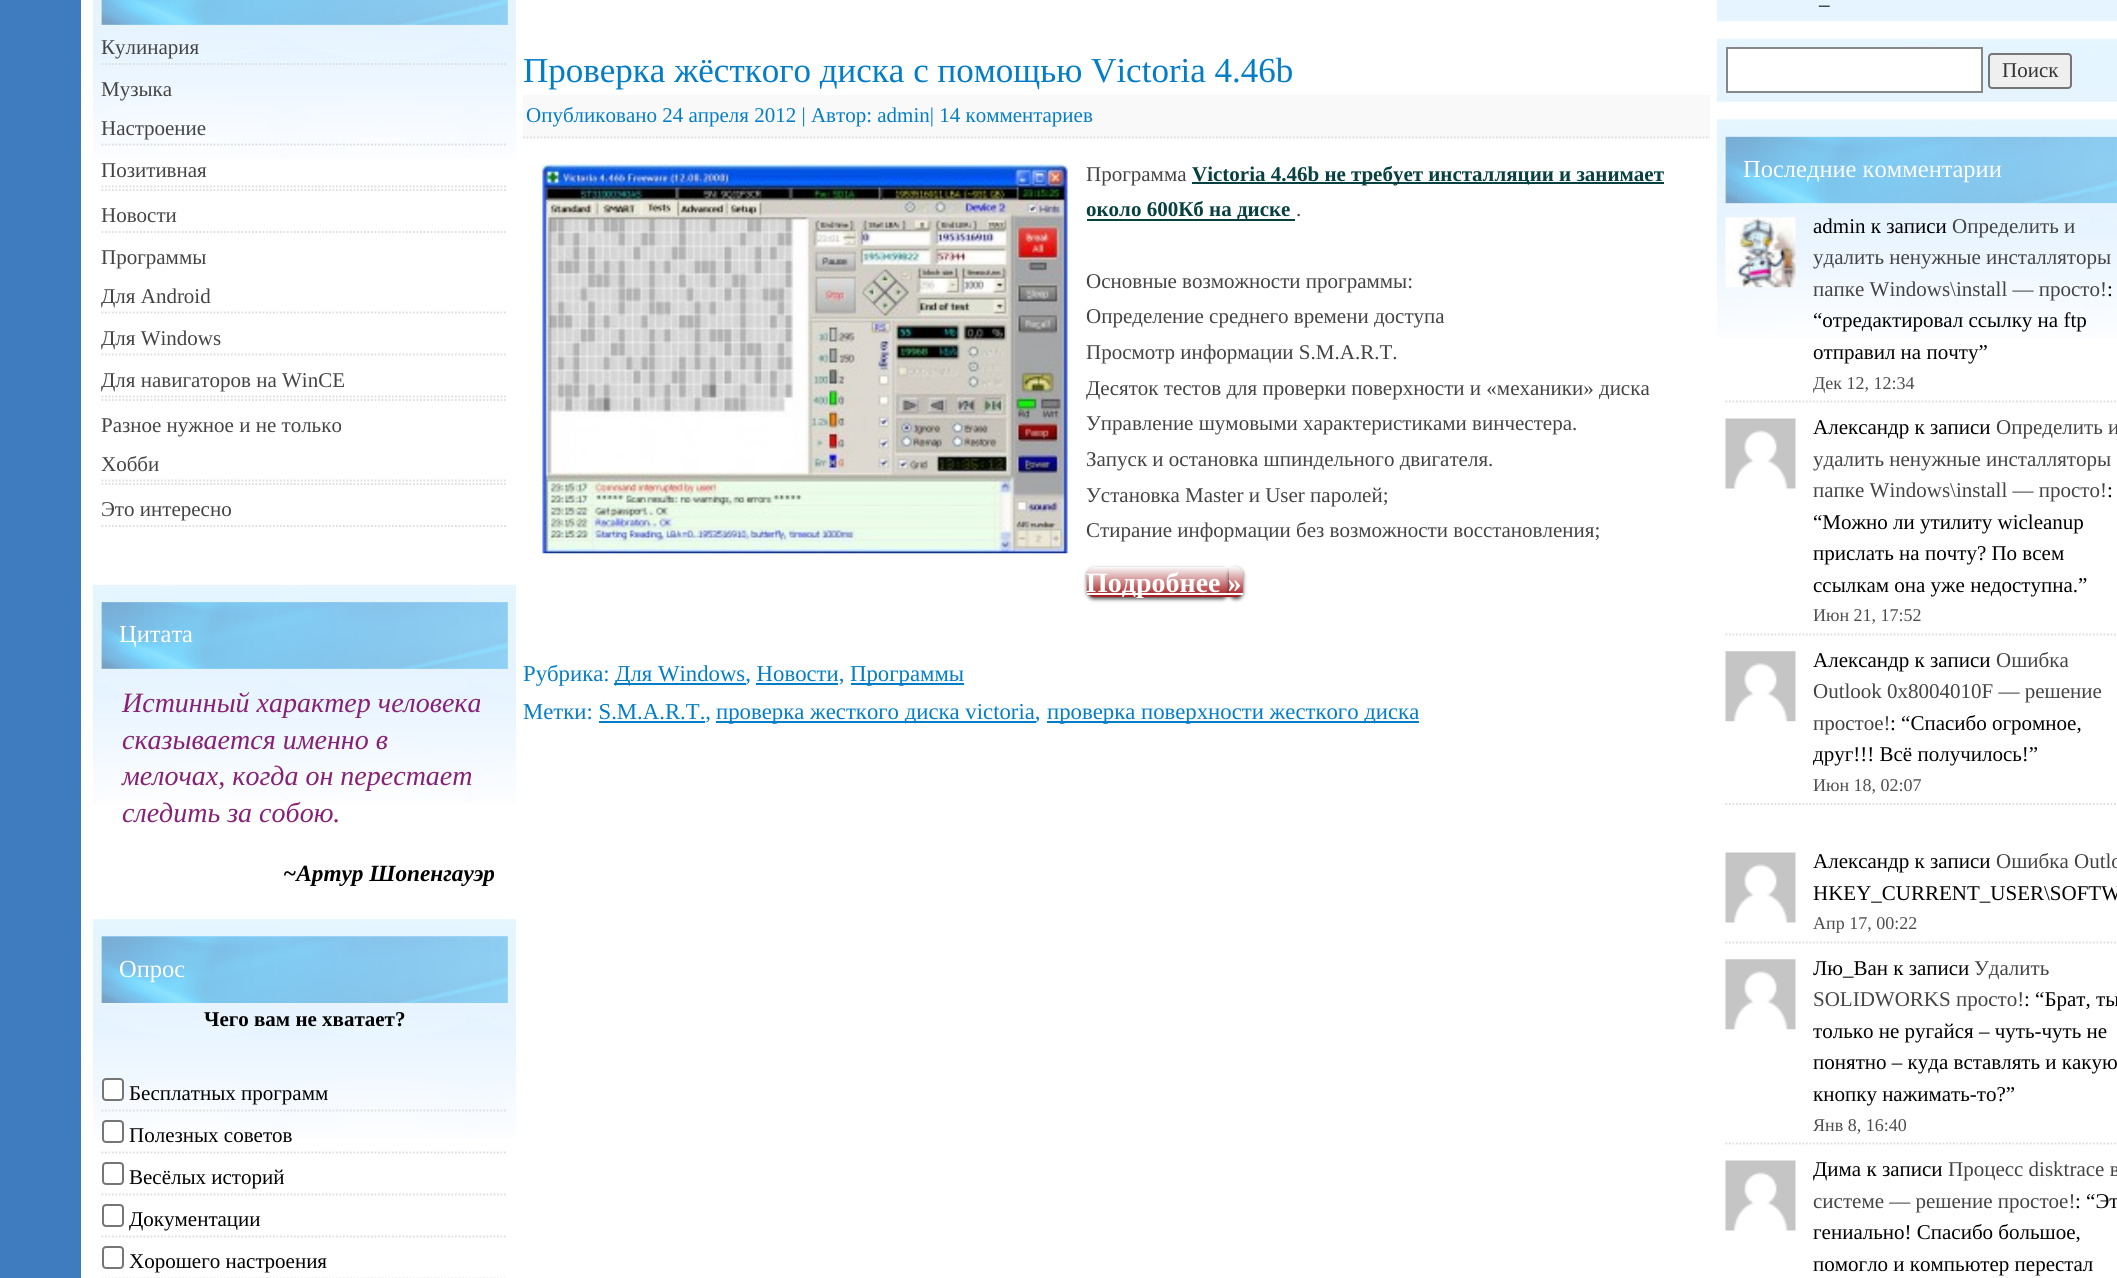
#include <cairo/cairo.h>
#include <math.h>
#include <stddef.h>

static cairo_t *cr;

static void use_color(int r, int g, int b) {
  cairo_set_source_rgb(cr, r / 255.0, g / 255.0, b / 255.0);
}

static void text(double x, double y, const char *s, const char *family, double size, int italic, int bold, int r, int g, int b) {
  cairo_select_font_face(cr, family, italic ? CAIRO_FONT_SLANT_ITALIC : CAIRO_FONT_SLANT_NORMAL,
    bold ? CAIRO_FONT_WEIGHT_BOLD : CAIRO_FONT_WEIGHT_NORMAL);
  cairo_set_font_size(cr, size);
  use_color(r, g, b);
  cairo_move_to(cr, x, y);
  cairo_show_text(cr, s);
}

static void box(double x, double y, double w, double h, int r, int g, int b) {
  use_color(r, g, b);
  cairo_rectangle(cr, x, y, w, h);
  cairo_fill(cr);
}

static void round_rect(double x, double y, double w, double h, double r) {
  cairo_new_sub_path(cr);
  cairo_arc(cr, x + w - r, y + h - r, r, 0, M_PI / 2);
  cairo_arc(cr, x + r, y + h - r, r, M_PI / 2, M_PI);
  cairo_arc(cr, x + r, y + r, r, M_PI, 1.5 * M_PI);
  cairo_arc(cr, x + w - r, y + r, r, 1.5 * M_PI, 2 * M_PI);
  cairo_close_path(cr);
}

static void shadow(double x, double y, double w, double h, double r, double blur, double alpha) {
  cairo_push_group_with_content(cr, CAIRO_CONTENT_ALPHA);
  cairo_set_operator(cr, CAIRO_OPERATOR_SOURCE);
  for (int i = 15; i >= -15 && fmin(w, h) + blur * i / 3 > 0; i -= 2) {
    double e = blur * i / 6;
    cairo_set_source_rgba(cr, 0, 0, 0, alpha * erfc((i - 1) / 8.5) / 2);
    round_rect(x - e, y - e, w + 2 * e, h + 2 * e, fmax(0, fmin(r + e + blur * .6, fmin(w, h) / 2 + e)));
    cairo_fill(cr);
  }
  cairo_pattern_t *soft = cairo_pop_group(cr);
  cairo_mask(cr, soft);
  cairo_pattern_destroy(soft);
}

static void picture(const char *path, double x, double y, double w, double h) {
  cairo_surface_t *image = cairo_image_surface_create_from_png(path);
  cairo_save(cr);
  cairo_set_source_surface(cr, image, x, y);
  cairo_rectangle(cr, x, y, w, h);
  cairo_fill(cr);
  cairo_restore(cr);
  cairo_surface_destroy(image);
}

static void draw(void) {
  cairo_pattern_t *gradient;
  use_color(62, 124, 191);
  cairo_paint(cr);
  box(81, 0, 2036, 1278, 255, 255, 255);
  picture("img_01.png", 93, 0, 423, 159);
  box(102, 0, 406, 25, 176, 222, 254);
  picture("img_02.png", 101, 0, 407, 25);
  cairo_new_path(cr);
  cairo_move_to(cr, 101.5, 64);
  cairo_line_to(cr, 507.5, 64);
  use_color(221, 221, 221);
  cairo_set_line_width(cr, 1.8);
  cairo_set_dash(cr, (double[]){1.75, 1.75}, 2, 0);
  cairo_stroke(cr);
  cairo_new_path(cr);
  cairo_move_to(cr, 101.5, 190);
  cairo_line_to(cr, 507.5, 190);
  cairo_stroke(cr);
  cairo_new_path(cr);
  cairo_move_to(cr, 101.5, 144.5);
  cairo_line_to(cr, 507.5, 144.5);
  cairo_stroke(cr);
  cairo_new_path(cr);
  cairo_move_to(cr, 101.5, 186.5);
  cairo_line_to(cr, 507.5, 186.5);
  cairo_stroke(cr);
  cairo_new_path(cr);
  cairo_move_to(cr, 101.5, 232);
  cairo_line_to(cr, 507.5, 232);
  cairo_stroke(cr);
  cairo_new_path(cr);
  cairo_move_to(cr, 101.5, 400);
  cairo_line_to(cr, 507.5, 400);
  cairo_stroke(cr);
  cairo_new_path(cr);
  cairo_move_to(cr, 101.5, 312.5);
  cairo_line_to(cr, 507.5, 312.5);
  cairo_stroke(cr);
  cairo_new_path(cr);
  cairo_move_to(cr, 101.5, 354.5);
  cairo_line_to(cr, 507.5, 354.5);
  cairo_stroke(cr);
  cairo_new_path(cr);
  cairo_move_to(cr, 101.5, 396.5);
  cairo_line_to(cr, 507.5, 396.5);
  cairo_stroke(cr);
  cairo_new_path(cr);
  cairo_move_to(cr, 101.5, 484);
  cairo_line_to(cr, 507.5, 484);
  cairo_stroke(cr);
  cairo_new_path(cr);
  cairo_move_to(cr, 101.5, 480.5);
  cairo_line_to(cr, 507.5, 480.5);
  cairo_stroke(cr);
  cairo_new_path(cr);
  cairo_move_to(cr, 101.5, 526);
  cairo_line_to(cr, 507.5, 526);
  cairo_stroke(cr);
  picture("img_03.png", 93, 584, 423, 219);
  box(102, 602, 406, 67, 176, 222, 254);
  picture("img_04.png", 101, 602, 407, 67);
  picture("img_05.png", 93, 919, 423, 219);
  box(102, 936, 406, 67, 176, 222, 254);
  picture("img_06.png", 101, 936, 407, 67);
  cairo_new_path(cr);
  cairo_move_to(cr, 101.5, 1110.5);
  cairo_line_to(cr, 507.5, 1110.5);
  use_color(221, 221, 221);
  cairo_stroke(cr);
  use_color(255, 255, 255);
  round_rect(103, 1079, 20, 21, 3);
  cairo_fill_preserve(cr);
  use_color(118, 118, 118);
  cairo_set_line_width(cr, 2);
  cairo_set_dash(cr, NULL, 0, 0);
  cairo_stroke(cr);
  cairo_new_path(cr);
  cairo_move_to(cr, 101.5, 1152.5);
  cairo_line_to(cr, 507.5, 1152.5);
  use_color(221, 221, 221);
  cairo_set_line_width(cr, 1.8);
  cairo_set_dash(cr, (double[]){1.75, 1.75}, 2, 0);
  cairo_stroke(cr);
  use_color(255, 255, 255);
  round_rect(103, 1121, 20, 21, 3);
  cairo_fill_preserve(cr);
  use_color(118, 118, 118);
  cairo_set_line_width(cr, 2);
  cairo_set_dash(cr, NULL, 0, 0);
  cairo_stroke(cr);
  cairo_new_path(cr);
  cairo_move_to(cr, 101.5, 1194.5);
  cairo_line_to(cr, 507.5, 1194.5);
  use_color(221, 221, 221);
  cairo_set_line_width(cr, 1.8);
  cairo_set_dash(cr, (double[]){1.75, 1.75}, 2, 0);
  cairo_stroke(cr);
  round_rect(103, 1163, 20, 21, 3);
  use_color(118, 118, 118);
  cairo_set_line_width(cr, 2);
  cairo_set_dash(cr, NULL, 0, 0);
  cairo_stroke(cr);
  cairo_new_path(cr);
  cairo_move_to(cr, 101.5, 1236.5);
  cairo_line_to(cr, 507.5, 1236.5);
  use_color(221, 221, 221);
  cairo_set_line_width(cr, 1.8);
  cairo_set_dash(cr, (double[]){1.75, 1.75}, 2, 0);
  cairo_stroke(cr);
  round_rect(103, 1205, 20, 21, 3);
  use_color(118, 118, 118);
  cairo_set_line_width(cr, 2);
  cairo_set_dash(cr, NULL, 0, 0);
  cairo_stroke(cr);
  cairo_new_path(cr);
  cairo_move_to(cr, 101.5, 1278.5);
  cairo_line_to(cr, 507.5, 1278.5);
  use_color(221, 221, 221);
  cairo_set_line_width(cr, 1.8);
  cairo_set_dash(cr, (double[]){1.75, 1.75}, 2, 0);
  cairo_stroke(cr);
  round_rect(103, 1247, 20, 21, 3);
  use_color(118, 118, 118);
  cairo_set_line_width(cr, 2);
  cairo_set_dash(cr, NULL, 0, 0);
  cairo_stroke(cr);
  box(523, 95, 1187, 43, 249, 249, 249);
  cairo_new_path(cr);
  cairo_move_to(cr, 523, 137.5);
  cairo_line_to(cr, 1710, 137.5);
  use_color(221, 221, 221);
  cairo_set_line_width(cr, 1.8);
  cairo_set_dash(cr, (double[]){1.75, 1.75}, 2, 0);
  cairo_stroke(cr);
  picture("img_07.png", 542, 164, 526, 390);
  box(1192, 182, 472, 2, 7, 64, 64);
  box(1087, 219, 208, 2, 7, 64, 64);
  use_color(0, 0, 0);
  shadow(1087, 569, 142, 30, 7, 2, 0.7);
  gradient = cairo_pattern_create_linear(1158, 567, 1158, 597);
  cairo_pattern_add_color_stop_rgba(gradient, 0, 0.976, 0.976, 0.976, 1);
  cairo_pattern_add_color_stop_rgba(gradient, 1, 0.651, 0.082, 0.094, 1);
  cairo_set_source(cr, gradient);
  cairo_pattern_destroy(gradient);
  cairo_new_path(cr);
  cairo_move_to(cr, 1094, 567);
  cairo_line_to(cr, 1229, 567);
  cairo_line_to(cr, 1229, 597);
  cairo_line_to(cr, 1094, 597);
  cairo_curve_to(cr, 1090, 597, 1087, 594, 1087, 590);
  cairo_line_to(cr, 1087, 574);
  cairo_curve_to(cr, 1087, 570, 1090, 567, 1094, 567);
  cairo_close_path(cr);
  cairo_fill(cr);
  use_color(0, 0, 0);
  shadow(1229, 569, 14, 30, 7, 2, 0.7);
  gradient = cairo_pattern_create_linear(1236, 567, 1236, 597);
  cairo_pattern_add_color_stop_rgba(gradient, 0, 0.976, 0.976, 0.976, 1);
  cairo_pattern_add_color_stop_rgba(gradient, 1, 0.651, 0.082, 0.094, 1);
  cairo_set_source(cr, gradient);
  cairo_pattern_destroy(gradient);
  cairo_new_path(cr);
  cairo_move_to(cr, 1229, 567);
  cairo_line_to(cr, 1236, 567);
  cairo_curve_to(cr, 1240, 567, 1243, 570, 1243, 574);
  cairo_line_to(cr, 1243, 590);
  cairo_curve_to(cr, 1243, 594, 1240, 597, 1236, 597);
  cairo_line_to(cr, 1229, 597);
  cairo_close_path(cr);
  cairo_fill(cr);
  box(1087, 593, 156, 2, 255, 255, 255);
  box(614, 683, 132, 2, 3, 125, 199);
  box(851, 683, 113, 2, 3, 125, 199);
  box(756, 683, 82, 2, 3, 125, 199);
  box(716, 721, 320, 2, 3, 125, 199);
  box(1047, 721, 372, 2, 3, 125, 199);
  box(599, 721, 106, 2, 3, 125, 199);
  picture("img_08.png", 1717, 0, 400, 22);
  picture("img_09.png", 1717, 38, 400, 64);
  use_color(255, 255, 255);
  cairo_rectangle(cr, 1727, 48, 255, 44);
  cairo_fill_preserve(cr);
  use_color(136, 136, 136);
  cairo_set_line_width(cr, 2);
  cairo_set_dash(cr, NULL, 0, 0);
  cairo_stroke(cr);
  use_color(239, 239, 239);
  round_rect(1989, 54, 82, 34, 3);
  cairo_fill_preserve(cr);
  use_color(118, 118, 118);
  cairo_stroke(cr);
  picture("img_10.png", 1717, 119, 400, 219);
  box(1726, 137, 391, 66, 176, 222, 254);
  picture("img_11.png", 1725, 136, 392, 68);
  cairo_new_path(cr);
  cairo_move_to(cr, 1725.5, 401.5);
  cairo_line_to(cr, 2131.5, 401.5);
  use_color(221, 221, 221);
  cairo_set_line_width(cr, 1.8);
  cairo_set_dash(cr, (double[]){1.75, 1.75}, 2, 0);
  cairo_stroke(cr);
  picture("img_12.png", 1725, 217, 71, 71);
  cairo_new_path(cr);
  cairo_move_to(cr, 1725.5, 634.5);
  cairo_line_to(cr, 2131.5, 634.5);
  cairo_stroke(cr);
  picture("img_13.png", 1725, 418, 71, 71);
  cairo_new_path(cr);
  cairo_move_to(cr, 1725.5, 804);
  cairo_line_to(cr, 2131.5, 804);
  cairo_stroke(cr);
  picture("img_14.png", 1725, 651, 71, 71);
  cairo_new_path(cr);
  cairo_move_to(cr, 1725.5, 942.5);
  cairo_line_to(cr, 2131.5, 942.5);
  cairo_stroke(cr);
  picture("img_13.png", 1725, 852, 71, 71);
  cairo_new_path(cr);
  cairo_move_to(cr, 1725.5, 1143.5);
  cairo_line_to(cr, 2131.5, 1143.5);
  cairo_stroke(cr);
  picture("img_14.png", 1725, 959, 71, 71);
  picture("img_13.png", 1725, 1160, 71, 71);
  text(101, 54, "Кулинария", "Liberation Serif", 21, 0, 0, 68, 68, 68);
  text(101, 96, "Музыка", "Liberation Serif", 21, 0, 0, 68, 68, 68);
  text(101, 135, "Настроение", "Liberation Serif", 21, 0, 0, 68, 68, 68);
  text(101, 177, "Позитивная", "Liberation Serif", 21, 0, 0, 68, 68, 68);
  text(101, 222, "Новости", "Liberation Serif", 21, 0, 0, 68, 68, 68);
  text(101, 264, "Программы", "Liberation Serif", 21, 0, 0, 68, 68, 68);
  text(101, 303, "Для Android", "Liberation Serif", 21, 0, 0, 68, 68, 68);
  text(101, 345, "Для Windows", "Liberation Serif", 21, 0, 0, 68, 68, 68);
  text(101, 387, "Для навигаторов на WinCE", "Liberation Serif", 21, 0, 0, 68, 68, 68);
  text(101, 432, "Разное нужное и не только", "Liberation Serif", 21, 0, 0, 68, 68, 68);
  text(101, 471, "Хобби", "Liberation Serif", 21, 0, 0, 68, 68, 68);
  text(101, 516, "Это интересно", "Liberation Serif", 21, 0, 0, 68, 68, 68);
  text(119, 642, "Цитата", "Liberation Serif", 24.5, 0, 0, 255, 255, 255);
  text(122, 712, "Истинный характер человека", "Liberation Serif", 28, 1, 0, 134, 33, 117);
  text(122, 749, "сказывается именно в", "Liberation Serif", 28, 1, 0, 134, 33, 117);
  text(122, 785, "мелочах, когда он перестает", "Liberation Serif", 28, 1, 0, 134, 33, 117);
  text(122, 822, "следить за собою.", "Liberation Serif", 28, 1, 0, 134, 33, 117);
  text(283, 881, "~Артур Шопенгауэр", "Liberation Serif", 23.25, 1, 1, 0, 0, 0);
  text(119, 977, "Опрос", "Liberation Serif", 24.5, 0, 0, 255, 255, 255);
  text(204, 1026, "Чего вам не хватает?", "Liberation Serif", 21, 0, 1, 0, 0, 0);
  text(129, 1100, "Бесплатных программ", "Liberation Serif", 21, 0, 0, 0, 0, 0);
  text(129, 1142, "Полезных советов", "Liberation Serif", 21, 0, 0, 0, 0, 0);
  text(129, 1184, "Весёлых историй", "Liberation Serif", 21, 0, 0, 0, 0, 0);
  text(129, 1226, "Документации", "Liberation Serif", 21, 0, 0, 0, 0, 0);
  text(129, 1268, "Хорошего настроения", "Liberation Serif", 21, 0, 0, 0, 0, 0);
  text(523, 82, "Проверка жёсткого диска с помощью Victoria 4.46b", "Liberation Serif", 35, 0, 0, 3, 125, 199);
  text(526, 122, "Опубликовано 24 апреля 2012 | Автор: admin| 14 комментариев", "Liberation Serif", 21, 0, 0, 3, 125, 199);
  text(1086, 181, "Программа", "Liberation Serif", 21, 0, 0, 68, 68, 68);
  text(1192, 181, "Victoria 4.46b не требует инсталляции и занимает", "Liberation Serif", 21, 0, 1, 7, 64, 64);
  text(1086, 216, "около 600Кб на диске", "Liberation Serif", 21, 0, 1, 7, 64, 64);
  text(1296, 216, ".", "Liberation Serif", 21, 0, 0, 68, 68, 68);
  text(1086, 288, "Основные возможности программы:", "Liberation Serif", 21, 0, 0, 68, 68, 68);
  text(1086, 323, "Определение среднего времени доступа", "Liberation Serif", 21, 0, 0, 68, 68, 68);
  text(1086, 359, "Просмотр информации S.M.A.R.T.", "Liberation Serif", 21, 0, 0, 68, 68, 68);
  text(1086, 395, "Десяток тестов для проверки поверхности и «механики» диска", "Liberation Serif", 21, 0, 0, 68, 68, 68);
  text(1086, 430, "Управление шумовыми характеристиками винчестера.", "Liberation Serif", 21, 0, 0, 68, 68, 68);
  text(1086, 466, "Запуск и остановка шпиндельного двигателя.", "Liberation Serif", 21, 0, 0, 68, 68, 68);
  text(1086, 502, "Установка Master и User паролей;", "Liberation Serif", 21, 0, 0, 68, 68, 68);
  text(1086, 537, "Стирание информации без возможности восстановления;", "Liberation Serif", 21, 0, 0, 68, 68, 68);
  text(1086, 592, "Подробнее »", "Liberation Serif", 28, 0, 1, 255, 255, 255);
  text(523, 681, "Рубрика:", "Liberation Serif", 22.75, 0, 0, 3, 125, 199);
  text(615, 681, "Для Windows, Новости,", "Liberation Serif", 22.75, 0, 0, 3, 125, 199);
  text(850, 681, "Программы", "Liberation Serif", 22.75, 0, 0, 3, 125, 199);
  text(523, 719, "Метки: S.M.A.R.T.,", "Liberation Serif", 22.75, 0, 0, 3, 125, 199);
  text(716, 719, "проверка жесткого диска victoria,", "Liberation Serif", 22.75, 0, 0, 3, 125, 199);
  text(1047, 719, "проверка поверхности жесткого диска", "Liberation Serif", 22.75, 0, 0, 3, 125, 199);
  text(1819, 4, "_", "Liberation Serif", 21, 0, 0, 0, 0, 0);
  text(2002, 77, "Поиск", "Liberation Serif", 21, 0, 0, 51, 51, 51);
  text(1743, 177, "Последние комментарии", "Liberation Serif", 24.5, 0, 0, 255, 255, 255);
  text(1813, 233, "admin к записи", "Liberation Serif", 21, 0, 0, 0, 0, 0);
  text(1952, 233, "Определить и", "Liberation Serif", 21, 0, 0, 68, 68, 68);
  text(1813, 264, "удалить ненужные инсталляторы", "Liberation Serif", 21, 0, 0, 68, 68, 68);
  text(1813, 296, "папке Windows\\install — просто!", "Liberation Serif", 21, 0, 0, 68, 68, 68);
  text(2107, 296, ":", "Liberation Serif", 21, 0, 0, 0, 0, 0);
  text(1813, 327, "“отредактировал ссылку на ftp", "Liberation Serif", 21, 0, 0, 0, 0, 0);
  text(1813, 359, "отправил на почту”", "Liberation Serif", 21, 0, 0, 0, 0, 0);
  text(1813, 389, "Дек 12, 12:34", "Liberation Serif", 18, 0, 0, 77, 77, 77);
  text(1813, 434, "Александр к записи", "Liberation Serif", 21, 0, 0, 0, 0, 0);
  text(1996, 434, "Определить и", "Liberation Serif", 21, 0, 0, 68, 68, 68);
  text(1813, 466, "удалить ненужные инсталляторы", "Liberation Serif", 21, 0, 0, 68, 68, 68);
  text(1813, 497, "папке Windows\\install — просто!", "Liberation Serif", 21, 0, 0, 68, 68, 68);
  text(2107, 497, ":", "Liberation Serif", 21, 0, 0, 0, 0, 0);
  text(1813, 529, "“Можно ли утилиту wicleanup", "Liberation Serif", 21, 0, 0, 0, 0, 0);
  text(1813, 560, "прислать на почту? По всем", "Liberation Serif", 21, 0, 0, 0, 0, 0);
  text(1813, 592, "ссылкам она уже недоступна.”", "Liberation Serif", 21, 0, 0, 0, 0, 0);
  text(1813, 621, "Июн 21, 17:52", "Liberation Serif", 18, 0, 0, 77, 77, 77);
  text(1813, 667, "Александр к записи", "Liberation Serif", 21, 0, 0, 0, 0, 0);
  text(1996, 667, "Ошибка", "Liberation Serif", 21, 0, 0, 68, 68, 68);
  text(1813, 698, "Outlook 0x8004010F — решение", "Liberation Serif", 21, 0, 0, 68, 68, 68);
  text(1813, 730, "простое!", "Liberation Serif", 21, 0, 0, 68, 68, 68);
  text(1890, 730, ": “Спасибо огромное,", "Liberation Serif", 21, 0, 0, 0, 0, 0);
  text(1813, 761, "друг!!! Всё получилось!”", "Liberation Serif", 21, 0, 0, 0, 0, 0);
  text(1813, 791, "Июн 18, 02:07", "Liberation Serif", 18, 0, 0, 77, 77, 77);
  text(1813, 868, "Александр к записи", "Liberation Serif", 21, 0, 0, 0, 0, 0);
  text(1996, 868, "Ошибка Outlo", "Liberation Serif", 21, 0, 0, 68, 68, 68);
  text(1813, 900, "HKEY_CURRENT_USER\\SOFTW", "Liberation Serif", 21, 0, 0, 0, 0, 0);
  text(1813, 929, "Апр 17, 00:22", "Liberation Serif", 18, 0, 0, 77, 77, 77);
  text(1813, 975, "Лю_Ван к записи", "Liberation Serif", 21, 0, 0, 0, 0, 0);
  text(1974, 975, "Удалить", "Liberation Serif", 21, 0, 0, 68, 68, 68);
  text(1813, 1006, "SOLIDWORKS просто!", "Liberation Serif", 21, 0, 0, 68, 68, 68);
  text(2024, 1006, ": “Брат, ты", "Liberation Serif", 21, 0, 0, 0, 0, 0);
  text(1813, 1038, "только не ругайся – чуть-чуть не", "Liberation Serif", 21, 0, 0, 0, 0, 0);
  text(1813, 1069, "понятно – куда вставлять и какую", "Liberation Serif", 21, 0, 0, 0, 0, 0);
  text(1813, 1101, "кнопку нажимать-то?”", "Liberation Serif", 21, 0, 0, 0, 0, 0);
  text(1813, 1131, "Янв 8, 16:40", "Liberation Serif", 18, 0, 0, 77, 77, 77);
  text(1813, 1176, "Дима к записи", "Liberation Serif", 21, 0, 0, 0, 0, 0);
  text(1948, 1176, "Процесс disktrace в", "Liberation Serif", 21, 0, 0, 68, 68, 68);
  text(1813, 1208, "системе — решение простое!", "Liberation Serif", 21, 0, 0, 68, 68, 68);
  text(2075, 1208, ": “Эт", "Liberation Serif", 21, 0, 0, 0, 0, 0);
  text(1813, 1239, "гениально! Спасибо большое,", "Liberation Serif", 21, 0, 0, 0, 0, 0);
  text(1813, 1271, "помогло и компьютер перестал", "Liberation Serif", 21, 0, 0, 0, 0, 0);
}

int main(void) {
  cairo_surface_t *surface = cairo_image_surface_create(CAIRO_FORMAT_RGB24, 2117, 1278);
  cr = cairo_create(surface);
  cairo_font_options_t *options = cairo_font_options_create();
  cairo_font_options_set_hint_metrics(options, CAIRO_HINT_METRICS_OFF);
  cairo_font_options_set_hint_style(options, CAIRO_HINT_STYLE_NONE);
  cairo_set_font_options(cr, options);
  cairo_set_miter_limit(cr, 4);
  draw();
  cairo_surface_write_to_png(surface, "out.png");
  cairo_font_options_destroy(options);
  cairo_destroy(cr);
  cairo_surface_destroy(surface);
  return 0;
}
